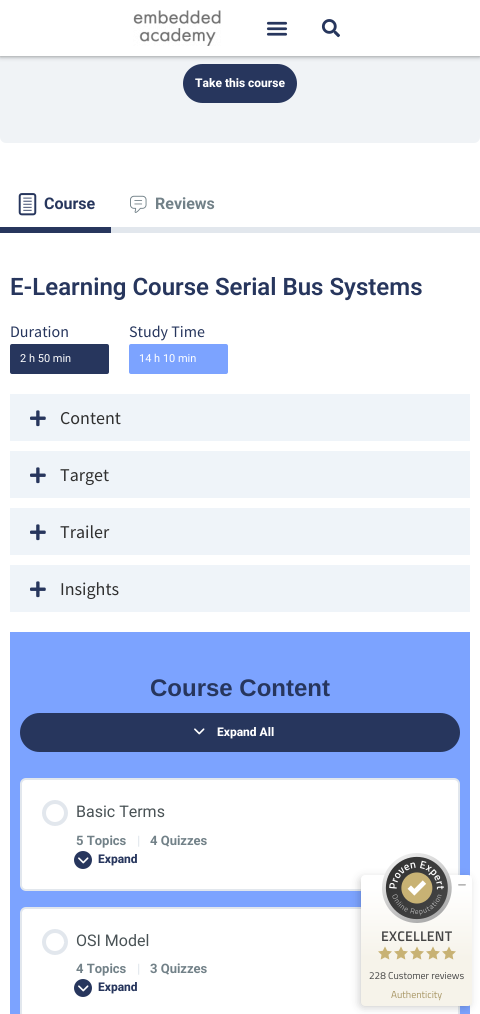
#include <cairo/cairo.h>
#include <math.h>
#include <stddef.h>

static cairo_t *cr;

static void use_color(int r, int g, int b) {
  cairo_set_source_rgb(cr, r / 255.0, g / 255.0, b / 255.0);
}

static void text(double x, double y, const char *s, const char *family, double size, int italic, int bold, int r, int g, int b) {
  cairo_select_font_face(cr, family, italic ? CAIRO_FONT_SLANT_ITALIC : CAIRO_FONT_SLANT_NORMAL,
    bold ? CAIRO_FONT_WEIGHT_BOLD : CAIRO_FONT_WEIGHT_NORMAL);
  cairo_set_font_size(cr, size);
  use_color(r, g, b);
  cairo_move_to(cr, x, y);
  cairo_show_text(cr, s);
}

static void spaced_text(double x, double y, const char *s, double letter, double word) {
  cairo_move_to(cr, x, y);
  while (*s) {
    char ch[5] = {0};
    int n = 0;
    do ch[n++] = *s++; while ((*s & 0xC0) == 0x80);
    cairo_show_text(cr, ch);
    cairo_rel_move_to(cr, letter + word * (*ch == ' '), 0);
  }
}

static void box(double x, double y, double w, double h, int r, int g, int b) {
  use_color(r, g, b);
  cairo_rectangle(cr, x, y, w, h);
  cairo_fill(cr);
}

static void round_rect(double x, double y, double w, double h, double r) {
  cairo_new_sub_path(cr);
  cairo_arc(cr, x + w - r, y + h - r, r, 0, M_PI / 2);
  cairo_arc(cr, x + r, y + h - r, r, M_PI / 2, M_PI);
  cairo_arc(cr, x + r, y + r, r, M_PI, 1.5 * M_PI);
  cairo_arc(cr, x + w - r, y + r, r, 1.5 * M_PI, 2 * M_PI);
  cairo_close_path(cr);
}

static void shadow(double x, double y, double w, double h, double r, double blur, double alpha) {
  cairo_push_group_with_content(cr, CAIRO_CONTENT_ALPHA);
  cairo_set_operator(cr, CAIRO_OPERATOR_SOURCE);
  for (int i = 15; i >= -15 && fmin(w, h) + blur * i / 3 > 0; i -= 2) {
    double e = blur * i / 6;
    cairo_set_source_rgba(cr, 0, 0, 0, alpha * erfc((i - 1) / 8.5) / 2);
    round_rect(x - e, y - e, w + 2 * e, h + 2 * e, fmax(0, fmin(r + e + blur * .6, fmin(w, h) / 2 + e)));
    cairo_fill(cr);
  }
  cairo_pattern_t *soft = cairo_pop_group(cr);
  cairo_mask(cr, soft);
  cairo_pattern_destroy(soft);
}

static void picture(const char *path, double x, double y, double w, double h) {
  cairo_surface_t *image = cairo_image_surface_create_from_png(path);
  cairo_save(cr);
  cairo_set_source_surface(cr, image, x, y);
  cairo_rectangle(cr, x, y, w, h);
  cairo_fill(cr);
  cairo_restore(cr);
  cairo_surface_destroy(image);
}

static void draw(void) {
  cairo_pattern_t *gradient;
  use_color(255, 255, 255);
  cairo_paint(cr);
  use_color(240, 243, 246);
  round_rect(0, -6, 480, 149, 6);
  cairo_fill(cr);
  use_color(39, 54, 93);
  round_rect(183, 64, 114, 39, 19.5);
  cairo_fill(cr);
  use_color(0, 0, 0);
  shadow(0, 0, 480, 56, 0, 2.5, 0.5);
  box(0, 0, 480, 56, 255, 255, 255);
  picture("img_01.png", 133, 10, 88, 36);
  picture("img_02.png", 266, 21, 22, 15);
  picture("img_03.png", 321, 19, 19, 19);
  picture("img_04.png", 18, 193, 19, 23);
  box(0, 227, 111, 6, 39, 54, 93);
  picture("img_05.png", 130, 195, 17, 18);
  box(111, 227, 369, 6, 226, 231, 237);
  use_color(39, 54, 93);
  round_rect(10, 344, 99, 30, 2);
  cairo_fill(cr);
  use_color(124, 163, 255);
  round_rect(129, 344, 99, 30, 2);
  cairo_fill(cr);
  box(10, 394, 460, 47, 239, 244, 249);
  picture("img_06.png", 30, 410, 16, 17);
  box(10, 451, 460, 47, 239, 244, 249);
  picture("img_06.png", 30, 467, 16, 17);
  box(10, 508, 460, 47, 239, 244, 249);
  picture("img_06.png", 30, 524, 16, 17);
  box(10, 565, 460, 47, 239, 244, 249);
  picture("img_06.png", 30, 581, 16, 17);
  box(10, 632, 460, 382, 124, 163, 255);
  use_color(39, 54, 93);
  round_rect(20, 713, 440, 39, 19.5);
  cairo_fill(cr);
  picture("img_07.png", 194, 728, 11, 7);
  use_color(255, 255, 255);
  round_rect(21, 779, 438, 111, 5);
  cairo_fill_preserve(cr);
  use_color(226, 231, 237);
  cairo_stroke(cr);
  cairo_arc(cr, 55, 813, 11, 0, 2 * M_PI);
  cairo_set_line_width(cr, 4);
  cairo_stroke(cr);
  use_color(39, 54, 93);
  cairo_arc(cr, 83, 860, 9, 0, 2 * M_PI);
  cairo_fill(cr);
  picture("img_07.png", 78, 857, 11, 7);
  use_color(255, 255, 255);
  round_rect(21, 908, 438, 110, 5);
  cairo_fill_preserve(cr);
  use_color(226, 231, 237);
  cairo_set_line_width(cr, 2);
  cairo_stroke(cr);
  cairo_arc(cr, 55, 942, 11, 0, 2 * M_PI);
  cairo_set_line_width(cr, 4);
  cairo_stroke(cr);
  use_color(39, 54, 93);
  cairo_arc(cr, 83, 988, 9, 0, 2 * M_PI);
  cairo_fill(cr);
  picture("img_07.png", 78, 985, 11, 7);
  use_color(255, 255, 255);
  cairo_new_path(cr);
  cairo_move_to(cr, 60.5, 939);
  cairo_line_to(cr, 64.5, 942.5);
  cairo_line_to(cr, 60.5, 946);
  cairo_line_to(cr, 57, 942.5);
  cairo_close_path(cr);
  cairo_fill(cr);
  use_color(0, 0, 0);
  shadow(361, 879, 107, 127, 2, 5, 0.25);
  gradient = cairo_pattern_create_linear(417, 1006, 417, 875);
  cairo_pattern_add_color_stop_rgba(gradient, 0.37, 0.965, 0.953, 0.918, 1);
  cairo_pattern_add_color_stop_rgba(gradient, 0.9, 1, 1, 1, 1);
  cairo_set_source(cr, gradient);
  cairo_pattern_destroy(gradient);
  round_rect(361, 875, 111, 131, 4);
  cairo_fill(cr);
  picture("img_08.png", 382, 853, 70, 70);
  picture("img_09.png", 458, 884, 8, 2);
  picture("img_10.png", 378, 946, 14, 14);
  picture("img_10.png", 394, 946, 14, 14);
  picture("img_10.png", 410, 946, 14, 14);
  picture("img_10.png", 426, 946, 14, 14);
  picture("img_10.png", 442, 946, 14, 14);
  text(195, 87, "Take this course", "Roboto ExtraBold", 12, 0, 0, 255, 255, 255);
  text(44, 209, "Course", "Roboto", 16, 0, 1, 39, 54, 93);
  text(155, 209, "Reviews", "Roboto", 16, 0, 1, 114, 129, 136);
  text(10, 295, "E-Learning Course Serial Bus Systems", "Roboto SemiBold", 24, 0, 0, 39, 54, 93);
  text(10, 337, "Duration", "Source Sans Pro", 16, 0, 0, 39, 54, 93);
  text(20, 362, "2 h 50 min", "Roboto", 11, 0, 0, 255, 255, 255);
  text(129, 337, "Study Time", "Source Sans Pro", 16, 0, 0, 39, 54, 93);
  text(139, 362, "14 h 10 min", "Roboto", 11, 0, 0, 255, 255, 255);
  text(60, 424, "Content", "Source Sans Pro", 18, 0, 0, 48, 48, 48);
  text(60, 481, "Target", "Source Sans Pro", 18, 0, 0, 48, 48, 48);
  text(60, 538, "Trailer", "Source Sans Pro", 18, 0, 0, 48, 48, 48);
  text(60, 595, "Insights", "Source Sans Pro", 18, 0, 0, 48, 48, 48);
  text(150, 696, "Course Content", "Liberation Sans", 24, 0, 1, 39, 54, 93);
  text(217, 736, "Expand All", "Roboto ExtraBold", 12, 0, 0, 255, 255, 255);
  text(76, 817, "Basic Terms", "Roboto", 16, 0, 0, 73, 82, 85);
  text(76, 845, "5 Topics", "Roboto", 13, 0, 1, 114, 129, 136);
  text(137, 845, "|", "Roboto", 13, 0, 1, 226, 231, 237);
  text(150, 845, "4 Quizzes", "Roboto", 13, 0, 1, 114, 129, 136);
  text(98, 863, "Expand", "Roboto ExtraBold", 12, 0, 0, 39, 54, 93);
  text(76, 946, "OSI Model", "Roboto", 16, 0, 0, 73, 82, 85);
  text(76, 973, "4 Topics", "Roboto", 13, 0, 1, 114, 129, 136);
  text(137, 973, "|", "Roboto", 13, 0, 1, 226, 231, 237);
  text(150, 973, "3 Quizzes", "Roboto", 13, 0, 1, 114, 129, 136);
  text(98, 991, "Expand", "Roboto ExtraBold", 12, 0, 0, 39, 54, 93);
  cairo_select_font_face(cr, "Titillium Web SemiBold", CAIRO_FONT_SLANT_NORMAL, CAIRO_FONT_WEIGHT_NORMAL);
  cairo_set_font_size(cr, 14);
  use_color(68, 68, 68);
  spaced_text(381, 941, "EXCELLENT", 0.25, 0);
  text(369, 979, "228 Customer reviews", "Titillium Web", 10, 0, 0, 68, 68, 68);
  text(391, 998, "Authenticity", "Titillium Web", 10, 0, 0, 167, 149, 99);
}

int main(void) {
  cairo_surface_t *surface = cairo_image_surface_create(CAIRO_FORMAT_RGB24, 480, 1014);
  cr = cairo_create(surface);
  cairo_font_options_t *options = cairo_font_options_create();
  cairo_font_options_set_hint_metrics(options, CAIRO_HINT_METRICS_OFF);
  cairo_font_options_set_hint_style(options, CAIRO_HINT_STYLE_NONE);
  cairo_set_font_options(cr, options);
  cairo_set_miter_limit(cr, 4);
  draw();
  cairo_surface_write_to_png(surface, "out.png");
  cairo_font_options_destroy(options);
  cairo_destroy(cr);
  cairo_surface_destroy(surface);
  return 0;
}
